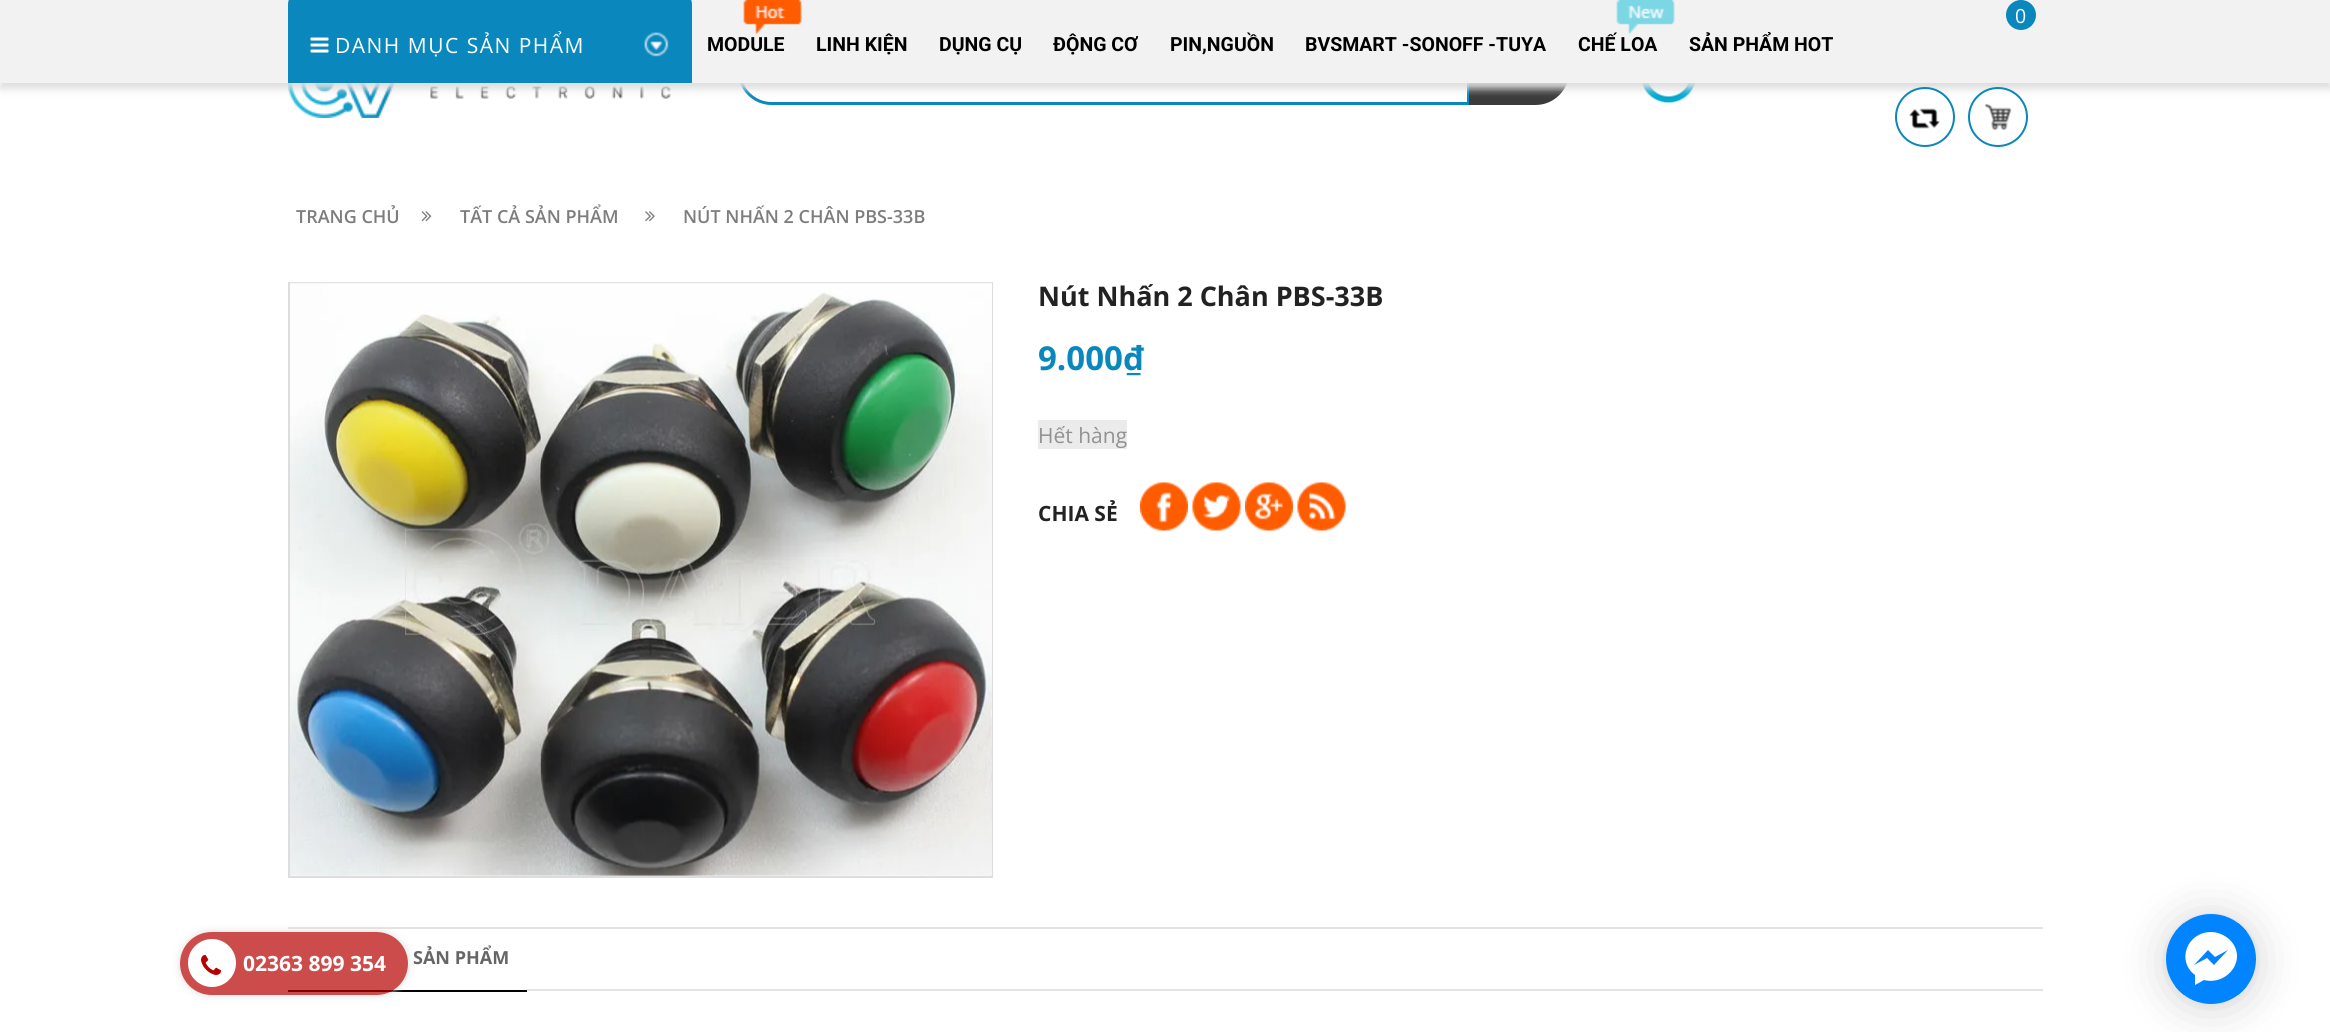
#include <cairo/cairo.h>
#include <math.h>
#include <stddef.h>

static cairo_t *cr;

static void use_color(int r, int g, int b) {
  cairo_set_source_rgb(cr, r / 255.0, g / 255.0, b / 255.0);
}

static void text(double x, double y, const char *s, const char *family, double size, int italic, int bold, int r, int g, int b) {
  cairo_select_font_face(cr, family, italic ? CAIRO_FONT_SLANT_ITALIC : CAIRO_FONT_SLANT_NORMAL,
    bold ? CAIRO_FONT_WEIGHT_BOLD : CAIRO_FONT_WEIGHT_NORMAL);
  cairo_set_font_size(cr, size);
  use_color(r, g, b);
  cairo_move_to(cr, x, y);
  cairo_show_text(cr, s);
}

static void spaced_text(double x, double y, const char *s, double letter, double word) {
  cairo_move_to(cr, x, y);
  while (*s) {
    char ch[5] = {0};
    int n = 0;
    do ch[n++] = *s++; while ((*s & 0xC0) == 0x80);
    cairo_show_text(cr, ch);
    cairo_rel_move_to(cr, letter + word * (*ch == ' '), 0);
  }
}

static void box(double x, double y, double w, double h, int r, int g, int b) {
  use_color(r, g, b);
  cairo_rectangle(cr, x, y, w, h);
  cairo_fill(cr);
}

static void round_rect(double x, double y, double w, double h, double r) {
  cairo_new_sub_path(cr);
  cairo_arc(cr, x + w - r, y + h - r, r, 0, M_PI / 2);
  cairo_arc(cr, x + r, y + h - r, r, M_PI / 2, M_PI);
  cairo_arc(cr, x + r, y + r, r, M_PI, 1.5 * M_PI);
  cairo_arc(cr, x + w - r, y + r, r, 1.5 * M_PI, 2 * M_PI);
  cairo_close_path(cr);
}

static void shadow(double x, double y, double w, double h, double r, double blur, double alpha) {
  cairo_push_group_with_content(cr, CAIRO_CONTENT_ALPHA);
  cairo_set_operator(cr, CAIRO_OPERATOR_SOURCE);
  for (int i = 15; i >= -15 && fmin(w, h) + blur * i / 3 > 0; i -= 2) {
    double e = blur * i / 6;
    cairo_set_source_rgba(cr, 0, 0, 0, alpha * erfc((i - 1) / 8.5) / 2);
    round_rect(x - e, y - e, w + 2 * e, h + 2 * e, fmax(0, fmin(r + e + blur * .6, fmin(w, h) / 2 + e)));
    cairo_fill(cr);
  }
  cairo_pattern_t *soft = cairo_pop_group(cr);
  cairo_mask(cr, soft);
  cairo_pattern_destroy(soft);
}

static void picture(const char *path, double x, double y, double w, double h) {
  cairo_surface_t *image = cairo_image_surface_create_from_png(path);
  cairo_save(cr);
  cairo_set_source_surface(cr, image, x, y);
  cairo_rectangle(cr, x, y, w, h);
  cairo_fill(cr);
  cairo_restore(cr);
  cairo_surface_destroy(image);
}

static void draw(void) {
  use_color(255, 255, 255);
  cairo_paint(cr);
  picture("img_07.png", 288, 83, 383, 35);
  cairo_new_path(cr);
  cairo_move_to(cr, 771.5, 39.5);
  cairo_line_to(cr, 1468.5, 39.5);
  cairo_line_to(cr, 1468.5, 103.5);
  cairo_line_to(cr, 771.5, 103.5);
  cairo_curve_to(cr, 754, 103.5, 739.5, 89, 739.5, 71.5);
  cairo_curve_to(cr, 739.5, 54, 754, 39.5, 771.5, 39.5);
  cairo_close_path(cr);
  use_color(10, 135, 188);
  cairo_set_line_width(cr, 3);
  cairo_stroke(cr);
  use_color(59, 59, 59);
  cairo_new_path(cr);
  cairo_move_to(cr, 1469, 38);
  cairo_line_to(cr, 1535.5, 38);
  cairo_curve_to(cr, 1554, 38, 1569, 53, 1569, 71.5);
  cairo_curve_to(cr, 1569, 90, 1554, 105, 1535.5, 105);
  cairo_line_to(cr, 1469, 105);
  cairo_close_path(cr);
  cairo_fill(cr);
  picture("img_08.png", 1640, 83, 56, 21);
  use_color(221, 221, 221);
  shadow(0, 6, 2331, 83, 0, 4, 1);
  box(0, 0, 2330, 83, 242, 242, 242);
  use_color(10, 135, 188);
  cairo_arc(cr, 2021, 15, 15, 0, 2 * M_PI);
  cairo_fill(cr);
  use_color(255, 255, 255);
  cairo_arc(cr, 1998, 117, 29, 0, 2 * M_PI);
  cairo_fill_preserve(cr);
  use_color(10, 135, 188);
  cairo_set_line_width(cr, 2);
  cairo_stroke(cr);
  picture("img_01.png", 1984, 103, 28, 27);
  use_color(255, 255, 255);
  cairo_arc(cr, 1925, 117, 29, 0, 2 * M_PI);
  cairo_fill_preserve(cr);
  use_color(10, 135, 188);
  cairo_stroke(cr);
  picture("img_02.png", 1909, 108, 31, 21);
  cairo_new_path(cr);
  cairo_move_to(cr, 299, -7);
  cairo_line_to(cr, 681, -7);
  cairo_curve_to(cr, 687, -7, 692, -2, 692, 4);
  cairo_line_to(cr, 692, 8);
  cairo_line_to(cr, 288, 8);
  cairo_line_to(cr, 288, 4);
  cairo_curve_to(cr, 288, -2, 293, -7, 299, -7);
  cairo_close_path(cr);
  cairo_fill(cr);
  box(288, 8, 404, 75, 10, 135, 188);
  picture("img_03.png", 310, 37, 19, 16);
  picture("img_04.png", 644, 32, 25, 25);
  picture("img_05.png", 743, 0, 59, 35);
  picture("img_06.png", 1616, 0, 59, 35);
  picture("img_09.png", 421, 211, 11, 11);
  picture("img_10.png", 645, 211, 10, 11);
  box(288, 927, 1755, 2, 229, 227, 223);
  box(288, 990, 239, 2, 0, 0, 0);
  cairo_save(cr);
  cairo_set_fill_rule(cr, CAIRO_FILL_RULE_EVEN_ODD);
  cairo_new_path(cr);
  cairo_move_to(cr, 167, 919);
  cairo_line_to(cr, 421, 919);
  cairo_line_to(cr, 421, 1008);
  cairo_line_to(cr, 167, 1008);
  cairo_close_path(cr);
  cairo_move_to(cr, 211.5, 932);
  cairo_line_to(cr, 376.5, 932);
  cairo_curve_to(cr, 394, 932, 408, 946, 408, 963.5);
  cairo_curve_to(cr, 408, 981, 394, 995, 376.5, 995);
  cairo_line_to(cr, 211.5, 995);
  cairo_curve_to(cr, 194, 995, 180, 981, 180, 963.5);
  cairo_curve_to(cr, 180, 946, 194, 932, 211.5, 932);
  cairo_close_path(cr);
  cairo_clip(cr);
  use_color(221, 221, 221);
  shadow(180, 932, 228, 63, 31.5, 4, 1);
  cairo_restore(cr);
  cairo_set_source_rgba(cr, 0.718, 0.004, 0, 0.7);
  round_rect(180, 932, 228, 63, 31.5);
  cairo_fill(cr);
  use_color(255, 255, 255);
  cairo_arc(cr, 212, 963, 24, 0, 2 * M_PI);
  cairo_fill(cr);
  picture("img_11.png", 201, 955, 20, 20);
  cairo_rectangle(cr, 289, 283, 703, 594);
  use_color(221, 221, 221);
  cairo_stroke(cr);
  picture("img_12.png", 290, 282, 702, 594);
  box(1038, 420, 89, 29, 235, 235, 235);
  picture("img_13.png", 1140, 482, 48, 49);
  picture("img_14.png", 1192, 482, 49, 49);
  picture("img_15.png", 1245, 482, 48, 49);
  picture("img_16.png", 1297, 482, 49, 49);
  box(527, 989, 1516, 2, 229, 227, 223);
  use_color(0, 0, 0);
  shadow(2166, 917, 90, 90, 45, 24, 0.16);
  shadow(2166, 915, 90, 90, 45, 4.5, 0.06);
  use_color(0, 132, 255);
  cairo_arc(cr, 2211, 959, 45, 0, 2 * M_PI);
  cairo_fill(cr);
  cairo_save(cr);
  round_rect(2166, 914, 90, 90, 45);
  cairo_clip(cr);
  box(2175, 923, 72, 72, 0, 132, 255);
  cairo_restore(cr);
  use_color(255, 255, 255);
  cairo_new_path(cr);
  cairo_move_to(cr, 2211, 932);
  cairo_curve_to(cr, 2187, 932, 2176, 961, 2195, 975);
  cairo_line_to(cr, 2195, 985);
  cairo_line_to(cr, 2204, 980);
  cairo_curve_to(cr, 2228, 986, 2249, 958, 2229, 939);
  cairo_curve_to(cr, 2224, 935, 2218, 932, 2211, 932);
  cairo_close_path(cr);
  cairo_move_to(cr, 2214, 965);
  cairo_line_to(cr, 2207, 958);
  cairo_line_to(cr, 2194, 965);
  cairo_line_to(cr, 2208, 950);
  cairo_line_to(cr, 2215, 957);
  cairo_line_to(cr, 2228, 950);
  cairo_close_path(cr);
  cairo_fill(cr);
  text(2015, 23, "0", "Open Sans", 19.5, 0, 0, 255, 255, 255);
  cairo_set_font_size(cr, 21);
  spaced_text(335, 53, "DANH MỤC SẢN PHẨM", 1.5, 0);
  text(707, 51, "MODULE", "Roboto", 19.5, 0, 1, 0, 0, 0);
  text(816, 51, "LINH KIỆN", "Roboto", 19.5, 0, 1, 0, 0, 0);
  text(939, 51, "DỤNG CỤ", "Roboto", 19.5, 0, 1, 0, 0, 0);
  text(1053, 51, "ĐỘNG CƠ", "Roboto", 19.5, 0, 1, 0, 0, 0);
  text(1170, 51, "PIN,NGUỒN", "Roboto", 19.5, 0, 1, 0, 0, 0);
  text(1305, 51, "BVSMART -SONOFF -TUYA", "Roboto", 19.5, 0, 1, 0, 0, 0);
  text(1578, 51, "CHẾ LOA", "Roboto", 19.5, 0, 1, 0, 0, 0);
  text(1689, 51, "SẢN PHẨM HOT", "Roboto", 19.5, 0, 1, 0, 0, 0);
  text(296, 223, "TRANG CHỦ", "Open Sans SemiBold", 18, 0, 0, 125, 125, 125);
  text(460, 223, "TẤT CẢ SẢN PHẨM", "Open Sans SemiBold", 18, 0, 0, 125, 125, 125);
  text(683, 223, "NÚT NHẤN 2 CHÂN PBS-33B", "Open Sans SemiBold", 18, 0, 0, 125, 125, 125);
  text(243, 971, "02363 899 354", "Open Sans", 21, 0, 1, 255, 255, 255);
  text(1038, 306, "Nút Nhấn 2 Chân PBS-33B", "Open Sans", 27, 0, 1, 34, 34, 34);
  text(1038, 370, "9.000₫", "Open Sans", 33, 0, 1, 10, 135, 188);
  text(1038, 443, "Hết hàng", "Open Sans", 21, 0, 0, 145, 145, 145);
  text(1038, 521, "CHIA SẺ", "Open Sans", 21, 0, 1, 34, 34, 34);
  text(413, 964, "SẢN PHẨM", "Open Sans", 18, 0, 1, 102, 102, 102);
}

int main(void) {
  cairo_surface_t *surface = cairo_image_surface_create(CAIRO_FORMAT_RGB24, 2330, 1032);
  cr = cairo_create(surface);
  cairo_font_options_t *options = cairo_font_options_create();
  cairo_font_options_set_hint_metrics(options, CAIRO_HINT_METRICS_OFF);
  cairo_font_options_set_hint_style(options, CAIRO_HINT_STYLE_NONE);
  cairo_set_font_options(cr, options);
  cairo_set_miter_limit(cr, 4);
  draw();
  cairo_surface_write_to_png(surface, "out.png");
  cairo_font_options_destroy(options);
  cairo_destroy(cr);
  cairo_surface_destroy(surface);
  return 0;
}
